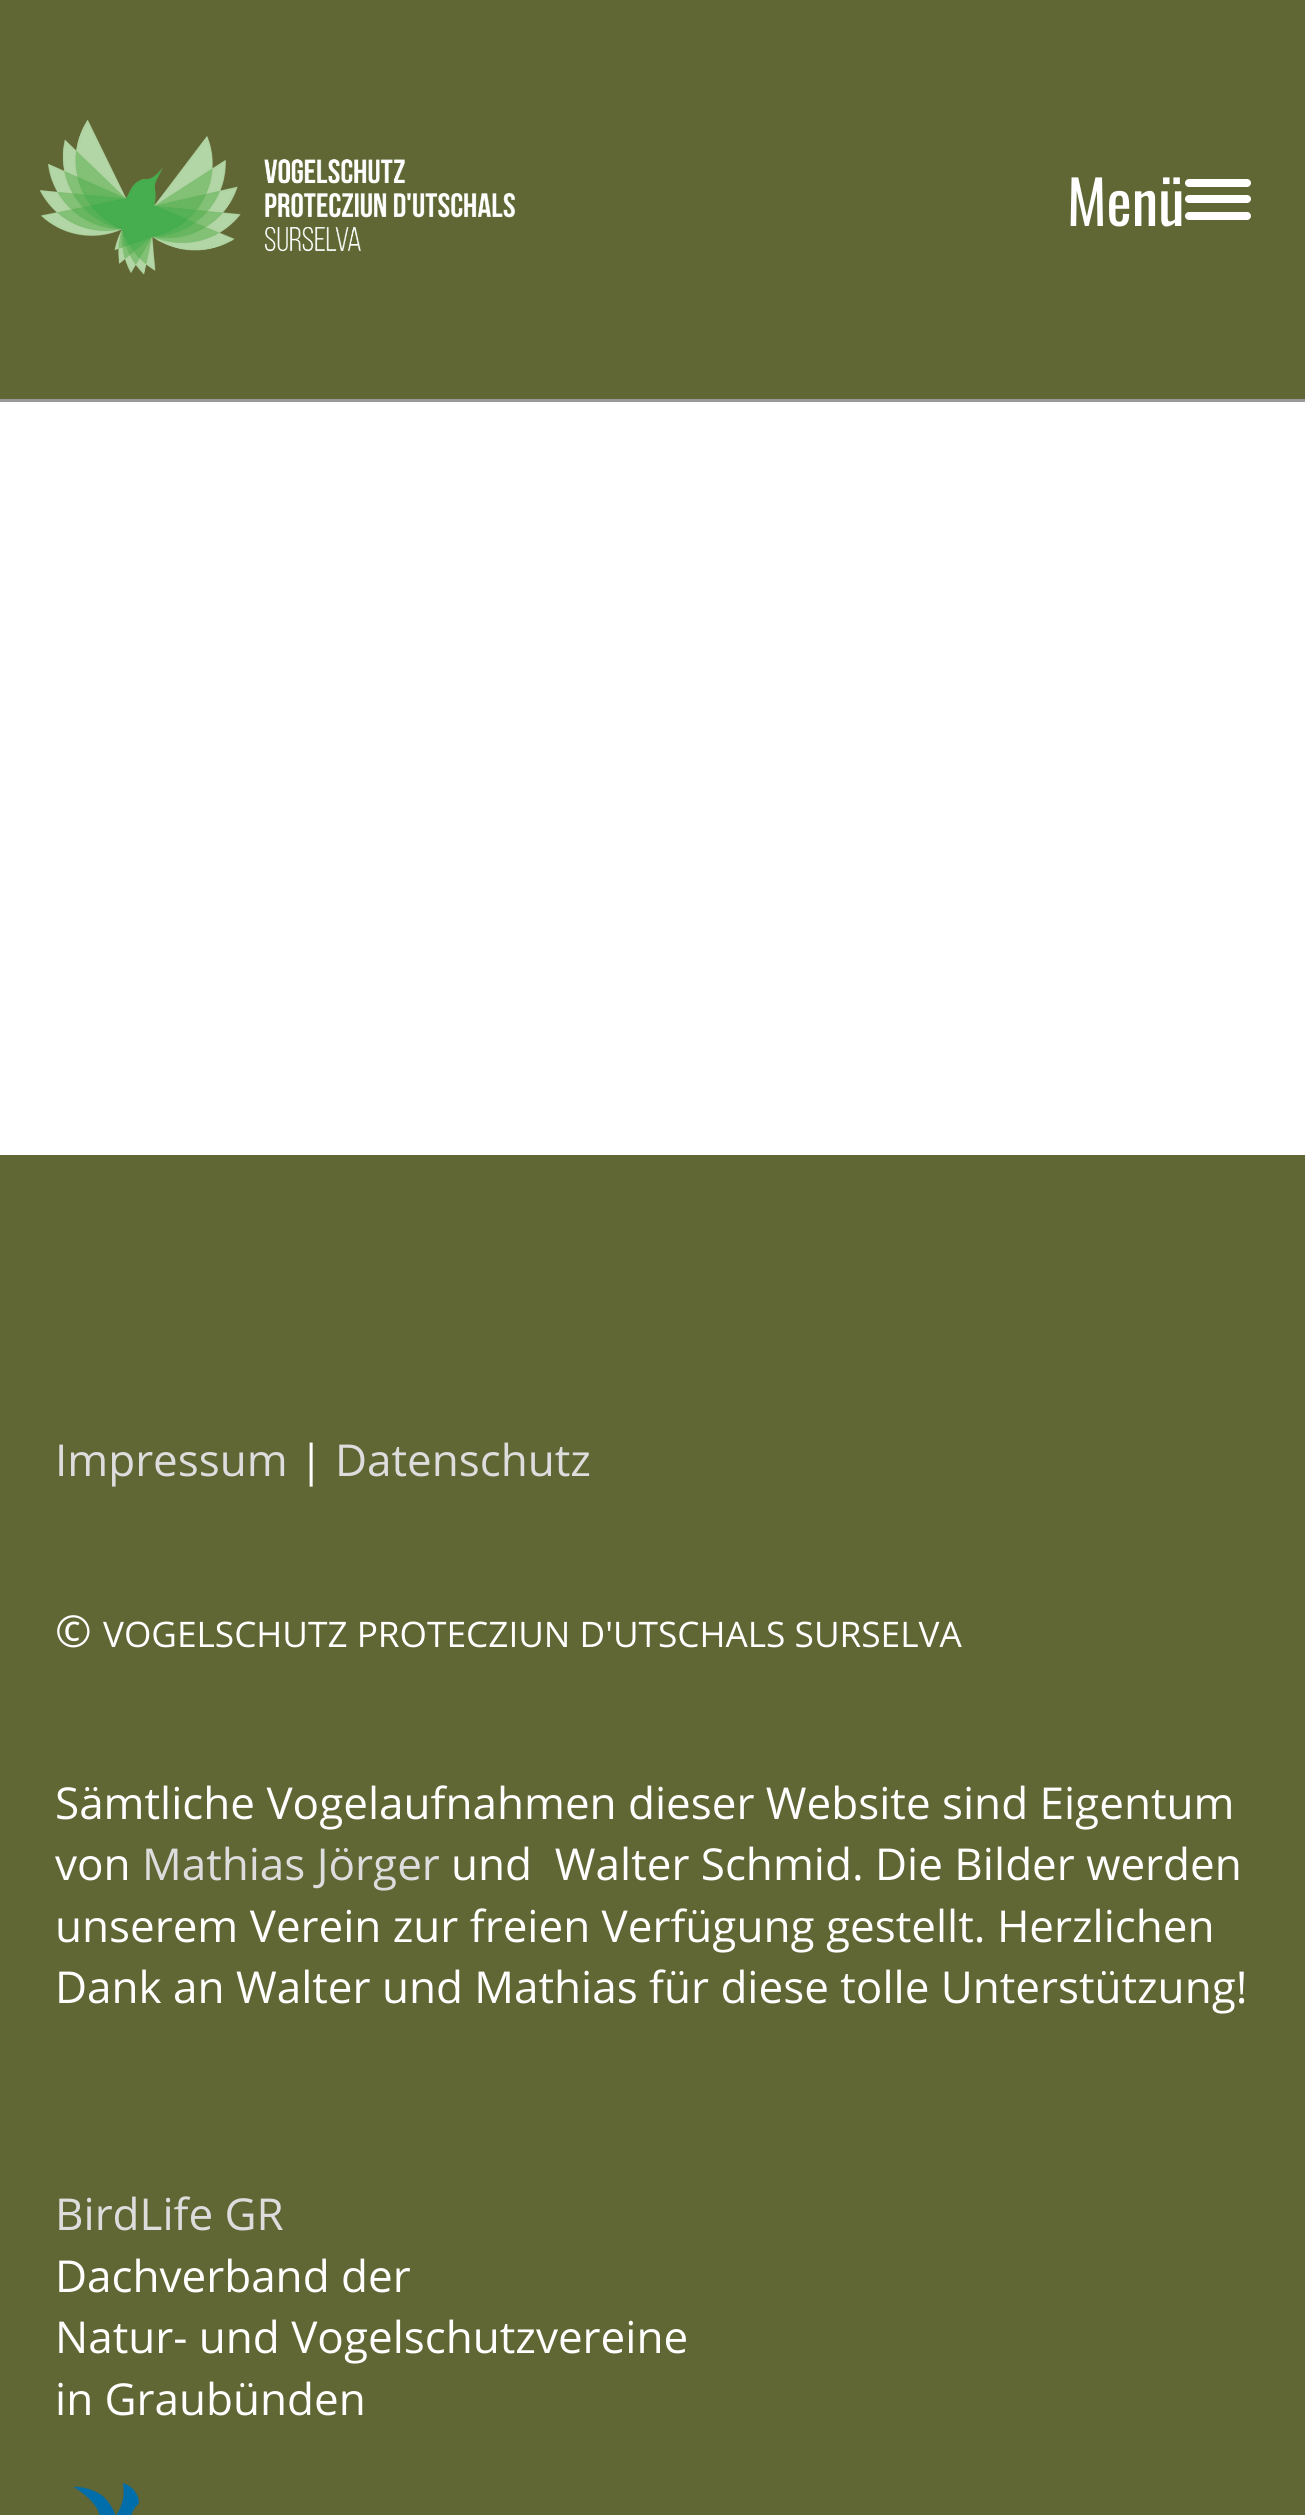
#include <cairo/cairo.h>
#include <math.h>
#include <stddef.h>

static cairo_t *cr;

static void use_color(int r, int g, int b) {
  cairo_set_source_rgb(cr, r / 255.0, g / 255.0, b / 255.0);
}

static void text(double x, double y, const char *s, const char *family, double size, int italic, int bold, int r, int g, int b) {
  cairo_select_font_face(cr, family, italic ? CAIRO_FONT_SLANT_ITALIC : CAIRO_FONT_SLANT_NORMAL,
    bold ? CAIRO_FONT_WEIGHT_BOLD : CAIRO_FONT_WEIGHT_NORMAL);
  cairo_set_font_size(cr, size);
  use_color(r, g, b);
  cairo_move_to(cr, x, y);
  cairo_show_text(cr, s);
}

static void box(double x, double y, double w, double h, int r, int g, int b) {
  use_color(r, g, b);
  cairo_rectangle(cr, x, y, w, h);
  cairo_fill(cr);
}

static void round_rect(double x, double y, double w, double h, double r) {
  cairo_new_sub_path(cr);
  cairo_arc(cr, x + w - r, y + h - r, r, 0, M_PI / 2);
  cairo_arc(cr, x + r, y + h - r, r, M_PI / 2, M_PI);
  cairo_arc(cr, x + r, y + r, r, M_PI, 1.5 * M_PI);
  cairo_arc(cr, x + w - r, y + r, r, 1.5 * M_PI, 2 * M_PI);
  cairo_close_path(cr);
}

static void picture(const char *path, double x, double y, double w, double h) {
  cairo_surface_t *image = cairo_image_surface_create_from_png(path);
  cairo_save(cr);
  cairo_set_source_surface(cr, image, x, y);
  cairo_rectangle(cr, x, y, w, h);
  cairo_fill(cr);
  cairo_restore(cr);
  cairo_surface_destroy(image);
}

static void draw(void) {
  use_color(255, 255, 255);
  cairo_paint(cr);
  box(0, 0, 1305, 399, 96, 103, 52);
  box(0, 399, 1305, 3, 153, 153, 153);
  picture("img_01.png", 39, 119, 477, 156);
  use_color(255, 255, 255);
  round_rect(1185, 179, 66, 8, 4);
  cairo_fill(cr);
  round_rect(1185, 195, 66, 8, 4);
  cairo_fill(cr);
  round_rect(1185, 212, 66, 8, 4);
  cairo_fill(cr);
  box(0, 1155, 1305, 1360, 96, 103, 52);
  picture("img_02.png", 73, 2483, 66, 32);
  text(1067, 226, "Menü", "Oswald", 60, 0, 0, 255, 255, 255);
  text(55, 1476, "Impressum", "Open Sans", 44, 0, 0, 221, 221, 221);
  text(299, 1476, "|", "Open Sans", 44, 0, 0, 255, 255, 255);
  text(335, 1476, "Datenschutz", "Open Sans", 44, 0, 0, 221, 221, 221);
  text(55, 1647, "©", "Open Sans", 44, 0, 0, 255, 255, 255);
  text(103, 1647, "VOGELSCHUTZ PROTECZIUN D'UTSCHALS SURSELVA", "Open Sans", 35.2, 0, 0, 255, 255, 255);
  text(55, 1819, "Sämtliche Vogelaufnahmen dieser Website sind Eigentum", "Open Sans", 44, 0, 0, 255, 255, 255);
  text(55, 1880, "von", "Open Sans", 44, 0, 0, 255, 255, 255);
  text(142, 1880, "Mathias Jörger", "Open Sans", 44, 0, 0, 221, 221, 221);
  text(451, 1880, "und  Walter Schmid. Die Bilder werden", "Open Sans", 44, 0, 0, 255, 255, 255);
  text(55, 1942, "unserem Verein zur freien Verfügung gestellt. Herzlichen", "Open Sans", 44, 0, 0, 255, 255, 255);
  text(55, 2003, "Dank an Walter und Mathias für diese tolle Unterstützung!", "Open Sans", 44, 0, 0, 255, 255, 255);
  text(55, 2230, "BirdLife GR", "Open Sans", 44, 0, 0, 221, 221, 221);
  text(55, 2292, "Dachverband der", "Open Sans", 44, 0, 0, 255, 255, 255);
  text(55, 2353, "Natur- und Vogelschutzvereine", "Open Sans", 44, 0, 0, 255, 255, 255);
  text(55, 2415, "in Graubünden", "Open Sans", 44, 0, 0, 255, 255, 255);
}

int main(void) {
  cairo_surface_t *surface = cairo_image_surface_create(CAIRO_FORMAT_RGB24, 1305, 2515);
  cr = cairo_create(surface);
  cairo_font_options_t *options = cairo_font_options_create();
  cairo_font_options_set_hint_metrics(options, CAIRO_HINT_METRICS_OFF);
  cairo_font_options_set_hint_style(options, CAIRO_HINT_STYLE_NONE);
  cairo_set_font_options(cr, options);
  cairo_set_miter_limit(cr, 4);
  draw();
  cairo_surface_write_to_png(surface, "out.png");
  cairo_font_options_destroy(options);
  cairo_destroy(cr);
  cairo_surface_destroy(surface);
  return 0;
}
